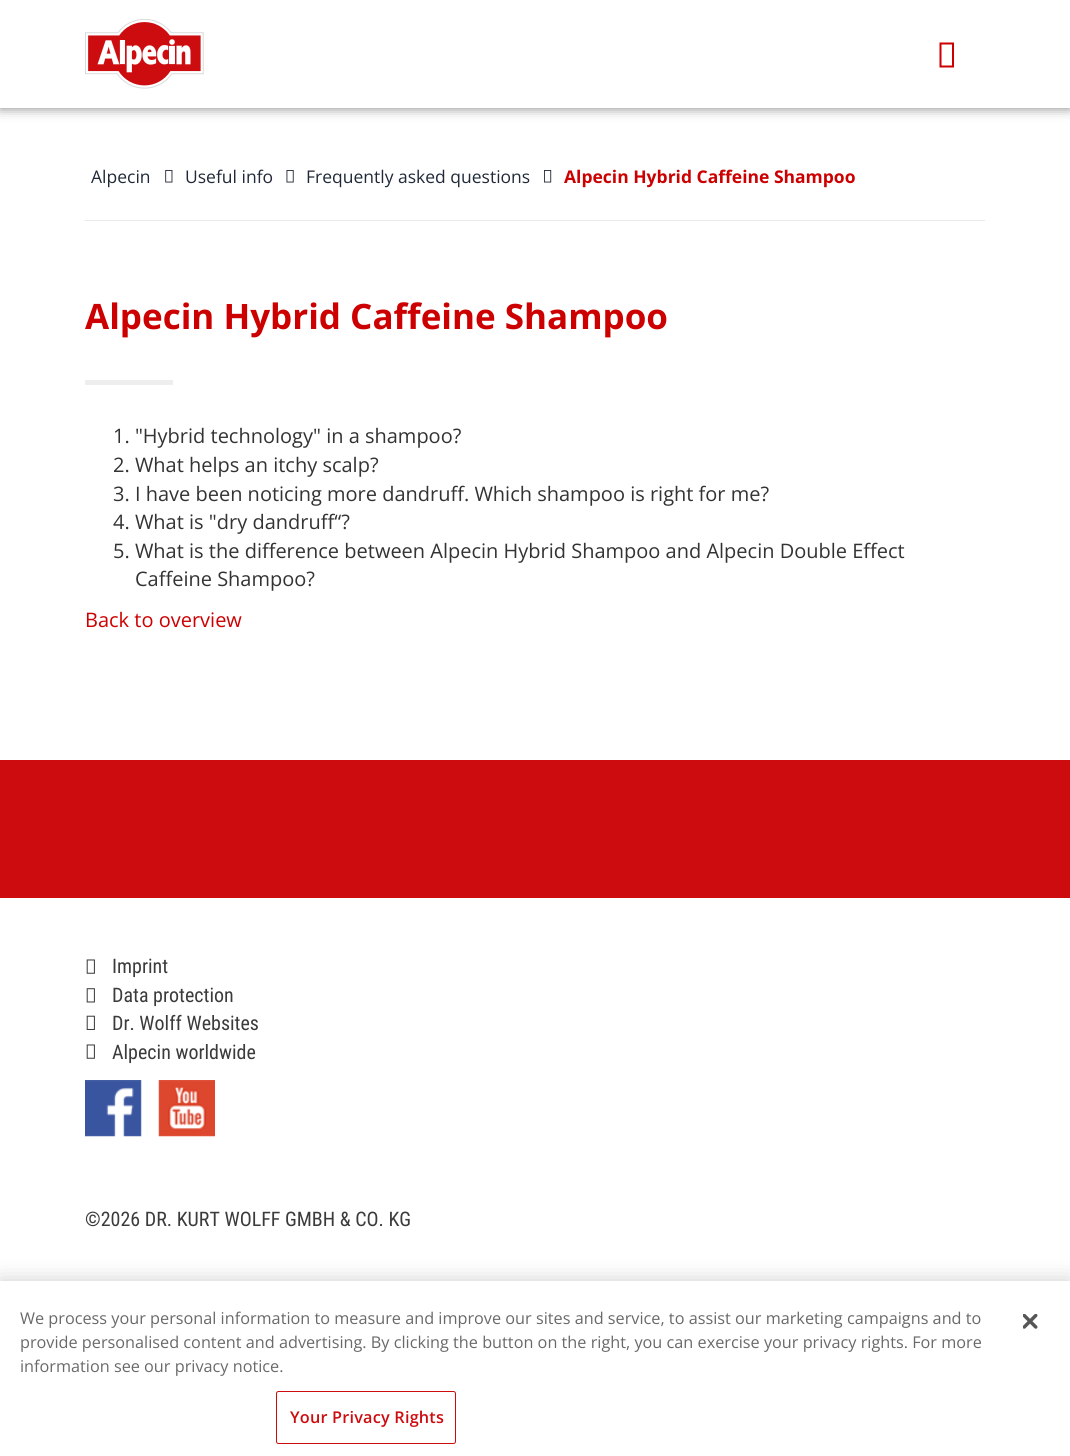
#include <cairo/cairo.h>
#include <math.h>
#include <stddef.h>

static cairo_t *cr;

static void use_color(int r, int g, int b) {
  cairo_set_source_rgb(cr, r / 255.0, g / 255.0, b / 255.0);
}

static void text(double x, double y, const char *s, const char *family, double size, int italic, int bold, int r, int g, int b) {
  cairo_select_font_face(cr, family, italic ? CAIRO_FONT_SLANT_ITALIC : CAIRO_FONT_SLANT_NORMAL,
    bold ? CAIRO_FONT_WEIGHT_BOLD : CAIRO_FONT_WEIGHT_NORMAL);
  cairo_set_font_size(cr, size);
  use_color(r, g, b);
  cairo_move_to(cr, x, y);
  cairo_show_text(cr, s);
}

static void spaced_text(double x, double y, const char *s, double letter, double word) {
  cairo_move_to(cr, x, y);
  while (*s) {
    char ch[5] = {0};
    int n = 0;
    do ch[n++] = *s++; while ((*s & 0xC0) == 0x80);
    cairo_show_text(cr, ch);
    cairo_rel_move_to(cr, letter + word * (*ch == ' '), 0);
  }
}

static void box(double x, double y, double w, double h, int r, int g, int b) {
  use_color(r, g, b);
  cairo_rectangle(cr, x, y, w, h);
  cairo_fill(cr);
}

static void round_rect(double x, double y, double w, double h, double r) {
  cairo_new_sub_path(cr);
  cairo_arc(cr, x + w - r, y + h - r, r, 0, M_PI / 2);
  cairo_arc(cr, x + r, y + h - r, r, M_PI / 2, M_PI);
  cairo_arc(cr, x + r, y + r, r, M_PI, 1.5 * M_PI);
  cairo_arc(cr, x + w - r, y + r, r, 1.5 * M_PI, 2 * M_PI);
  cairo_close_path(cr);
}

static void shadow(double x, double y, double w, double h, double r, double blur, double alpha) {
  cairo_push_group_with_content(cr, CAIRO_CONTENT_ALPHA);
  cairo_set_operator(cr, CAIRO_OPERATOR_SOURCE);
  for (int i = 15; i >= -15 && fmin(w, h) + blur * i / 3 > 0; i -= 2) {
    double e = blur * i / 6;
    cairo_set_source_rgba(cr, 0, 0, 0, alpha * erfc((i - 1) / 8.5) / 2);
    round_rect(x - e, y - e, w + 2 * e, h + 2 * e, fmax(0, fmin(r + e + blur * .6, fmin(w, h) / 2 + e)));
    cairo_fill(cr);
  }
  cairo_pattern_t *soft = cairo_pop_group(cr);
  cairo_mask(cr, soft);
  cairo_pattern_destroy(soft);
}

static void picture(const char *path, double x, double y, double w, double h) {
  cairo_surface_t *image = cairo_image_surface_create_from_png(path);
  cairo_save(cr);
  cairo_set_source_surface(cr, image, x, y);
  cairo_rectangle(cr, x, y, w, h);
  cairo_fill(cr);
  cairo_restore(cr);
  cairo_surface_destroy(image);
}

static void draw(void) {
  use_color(255, 255, 255);
  cairo_paint(cr);
  cairo_save(cr);
  cairo_set_fill_rule(cr, CAIRO_FILL_RULE_EVEN_ODD);
  cairo_new_path(cr);
  cairo_move_to(cr, 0, 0);
  cairo_line_to(cr, 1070, 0);
  cairo_line_to(cr, 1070, 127);
  cairo_line_to(cr, 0, 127);
  cairo_close_path(cr);
  cairo_move_to(cr, 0, 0);
  cairo_line_to(cr, 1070, 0);
  cairo_line_to(cr, 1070, 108);
  cairo_line_to(cr, 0, 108);
  cairo_close_path(cr);
  cairo_clip(cr);
  use_color(0, 0, 0);
  shadow(0, 0, 1070, 108, 0, 6, 0.5);
  cairo_restore(cr);
  picture("img_01.png", 85, 19, 119, 70);
  use_color(204, 0, 0);
  cairo_new_path(cr);
  cairo_move_to(cr, 939.5, 67.5);
  cairo_line_to(cr, 939.5, 42.5);
  cairo_line_to(cr, 954, 42.5);
  cairo_line_to(cr, 954, 67.5);
  cairo_close_path(cr);
  cairo_move_to(cr, 941.5, 65.5);
  cairo_line_to(cr, 952, 65.5);
  cairo_line_to(cr, 952, 44.5);
  cairo_line_to(cr, 941.5, 44.5);
  cairo_close_path(cr);
  cairo_fill(cr);
  box(85, 220, 900, 1, 234, 234, 234);
  picture("img_02.png", 165, 170, 8, 13);
  picture("img_03.png", 286, 170, 8, 13);
  picture("img_04.png", 544, 170, 8, 13);
  box(85, 380, 88, 5, 238, 238, 238);
  box(0, 760, 1070, 138, 205, 12, 16);
  picture("img_05.png", 86, 959, 9, 15);
  picture("img_06.png", 86, 988, 9, 15);
  picture("img_07.png", 86, 1015, 9, 15);
  picture("img_05.png", 86, 1044, 9, 15);
  picture("img_08.png", 85, 1080, 57, 57);
  picture("img_09.png", 158, 1080, 57, 57);
  use_color(0, 0, 0);
  shadow(0, 1281, 1070, 175, 0, 11, 0.2);
  box(0, 1281, 1070, 175, 255, 255, 255);
  round_rect(276.5, 1391.5, 179, 52, 2);
  use_color(205, 12, 16);
  cairo_set_line_width(cr, 1);
  cairo_stroke(cr);
  picture("img_10.png", 1023, 1314, 15, 15);
  text(91, 183, "Alpecin", "Open Sans", 17.5, 0, 0, 31, 41, 56);
  text(185, 183, "Useful info", "Open Sans", 17.5, 0, 0, 31, 41, 56);
  text(306, 183, "Frequently asked questions", "Open Sans", 17.5, 0, 0, 31, 41, 56);
  text(564, 183, "Alpecin Hybrid Caffeine Shampoo", "Open Sans", 17.5, 0, 1, 204, 0, 0);
  text(85, 329, "Alpecin Hybrid Caffeine Shampoo", "Open Sans", 35, 0, 1, 204, 0, 0);
  text(113, 443, "1. \"Hybrid technology\" in a shampoo?", "Open Sans", 20, 0, 0, 51, 51, 51);
  text(113, 472, "2. What helps an itchy scalp?", "Open Sans", 20, 0, 0, 51, 51, 51);
  text(113, 501, "3. I have been noticing more dandruff. Which shampoo is right for me?", "Open Sans", 20, 0, 0, 51, 51, 51);
  text(113, 529, "4. What is \"dry dandruff“?", "Open Sans", 20, 0, 0, 51, 51, 51);
  text(113, 558, "5. What is the difference between Alpecin Hybrid Shampoo and Alpecin Double Effect", "Open Sans", 20, 0, 0, 51, 51, 51);
  text(135, 586, "Caffeine Shampoo?", "Open Sans", 20, 0, 0, 51, 51, 51);
  text(85, 627, "Back to overview", "Open Sans", 20, 0, 0, 204, 0, 0);
  text(112, 973, "Imprint", "Roboto Condensed", 20, 0, 0, 59, 59, 59);
  text(112, 1002, "Data protection", "Roboto Condensed", 20, 0, 0, 59, 59, 59);
  text(112, 1030, "Dr. Wolff Websites", "Roboto Condensed", 20, 0, 0, 59, 59, 59);
  text(112, 1059, "Alpecin worldwide", "Roboto Condensed", 20, 0, 0, 59, 59, 59);
  text(85, 1226, "©2026 DR. KURT WOLFF GMBH & CO. KG", "Roboto Condensed", 20, 0, 0, 59, 59, 59);
  text(20, 1324, "We process your personal information to measure and improve our sites and service, to assist our marketing campaigns and to", "Open Sans", 16.25, 0, 0, 105, 105, 105);
  text(20, 1348, "provide personalised content and advertising. By clicking the button on the right, you can exercise your privacy rights. For more", "Open Sans", 16.25, 0, 0, 105, 105, 105);
  text(20, 1372, "information see our privacy notice.", "Open Sans", 16.25, 0, 0, 105, 105, 105);
  cairo_select_font_face(cr, "Open Sans SemiBold", CAIRO_FONT_SLANT_NORMAL, CAIRO_FONT_WEIGHT_NORMAL);
  use_color(205, 12, 16);
  spaced_text(290, 1423, "Your Privacy Rights", 0.2, 0);
}

int main(void) {
  cairo_surface_t *surface = cairo_image_surface_create(CAIRO_FORMAT_RGB24, 1070, 1456);
  cr = cairo_create(surface);
  cairo_font_options_t *options = cairo_font_options_create();
  cairo_font_options_set_hint_metrics(options, CAIRO_HINT_METRICS_OFF);
  cairo_font_options_set_hint_style(options, CAIRO_HINT_STYLE_NONE);
  cairo_set_font_options(cr, options);
  cairo_set_miter_limit(cr, 4);
  draw();
  cairo_surface_write_to_png(surface, "out.png");
  cairo_font_options_destroy(options);
  cairo_destroy(cr);
  cairo_surface_destroy(surface);
  return 0;
}
